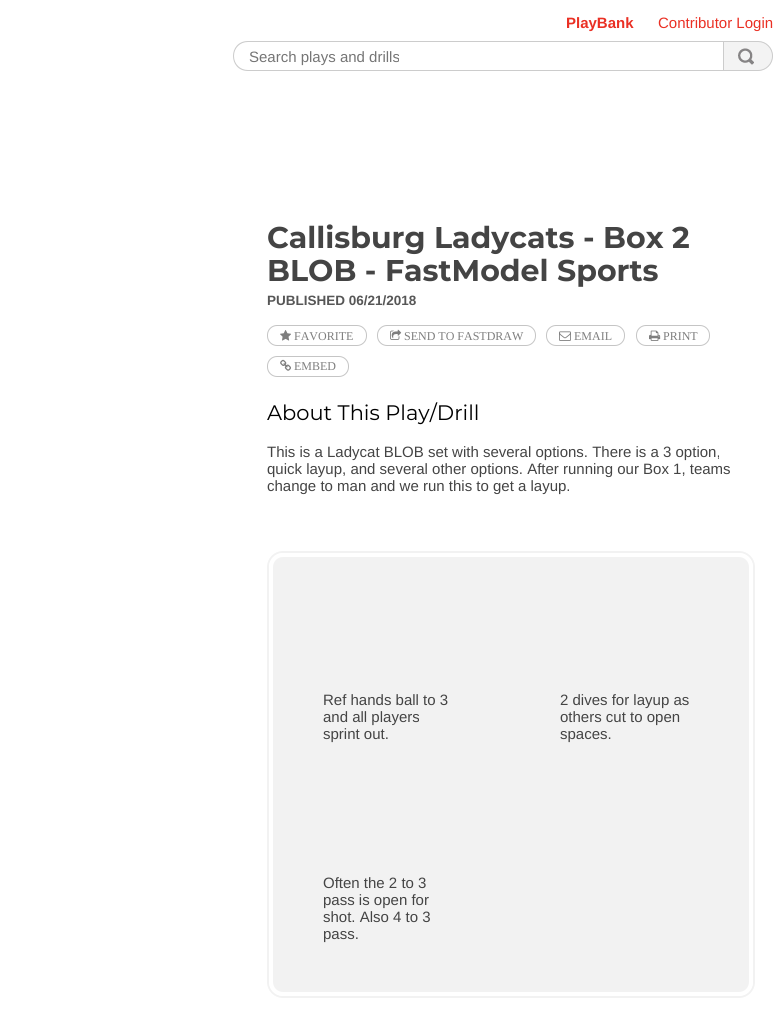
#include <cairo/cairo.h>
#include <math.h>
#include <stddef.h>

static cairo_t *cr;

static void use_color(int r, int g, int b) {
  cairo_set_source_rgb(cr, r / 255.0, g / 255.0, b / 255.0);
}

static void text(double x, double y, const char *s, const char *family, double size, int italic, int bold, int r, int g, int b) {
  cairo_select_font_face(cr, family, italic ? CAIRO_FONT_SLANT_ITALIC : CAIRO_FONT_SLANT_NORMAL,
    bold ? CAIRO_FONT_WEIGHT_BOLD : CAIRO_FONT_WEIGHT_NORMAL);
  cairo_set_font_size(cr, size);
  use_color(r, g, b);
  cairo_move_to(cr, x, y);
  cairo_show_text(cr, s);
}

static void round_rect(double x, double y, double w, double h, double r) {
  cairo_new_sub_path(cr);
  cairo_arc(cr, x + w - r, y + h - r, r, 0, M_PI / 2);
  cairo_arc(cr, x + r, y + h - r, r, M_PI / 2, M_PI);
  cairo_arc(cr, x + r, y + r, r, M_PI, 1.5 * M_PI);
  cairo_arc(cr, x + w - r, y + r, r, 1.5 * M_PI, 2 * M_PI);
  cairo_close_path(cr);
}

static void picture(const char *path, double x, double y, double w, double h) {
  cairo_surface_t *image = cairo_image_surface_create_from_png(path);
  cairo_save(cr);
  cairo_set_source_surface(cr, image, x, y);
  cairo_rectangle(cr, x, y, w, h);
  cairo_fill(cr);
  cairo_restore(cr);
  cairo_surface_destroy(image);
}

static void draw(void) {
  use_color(255, 255, 255);
  cairo_paint(cr);
  use_color(204, 204, 204);
  cairo_set_fill_rule(cr, CAIRO_FILL_RULE_EVEN_ODD);
  cairo_new_path(cr);
  cairo_move_to(cr, 248, 41);
  cairo_line_to(cr, 723, 41);
  cairo_line_to(cr, 723, 71);
  cairo_line_to(cr, 248, 71);
  cairo_curve_to(cr, 228, 71, 228, 41, 248, 41);
  cairo_close_path(cr);
  cairo_move_to(cr, 248, 42);
  cairo_line_to(cr, 723, 42);
  cairo_line_to(cr, 723, 70);
  cairo_line_to(cr, 248, 70);
  cairo_curve_to(cr, 240, 70, 234, 64, 234, 56);
  cairo_curve_to(cr, 234, 48, 240, 42, 248, 42);
  cairo_close_path(cr);
  cairo_fill(cr);
  use_color(243, 243, 243);
  cairo_new_path(cr);
  cairo_move_to(cr, 723, 41);
  cairo_line_to(cr, 758, 41);
  cairo_curve_to(cr, 766.5, 41, 773, 47.5, 773, 56);
  cairo_curve_to(cr, 773, 64.5, 766.5, 71, 758, 71);
  cairo_line_to(cr, 723, 71);
  cairo_close_path(cr);
  cairo_fill(cr);
  picture("img_01.png", 738, 48, 16, 17);
  cairo_new_path(cr);
  cairo_move_to(cr, 723.5, 41.5);
  cairo_line_to(cr, 758, 41.5);
  cairo_curve_to(cr, 766, 41.5, 772.5, 48, 772.5, 56);
  cairo_curve_to(cr, 772.5, 64, 766, 70.5, 758, 70.5);
  cairo_line_to(cr, 723.5, 70.5);
  cairo_close_path(cr);
  use_color(204, 204, 204);
  cairo_set_line_width(cr, 1);
  cairo_stroke(cr);
  round_rect(267.5, 325.5, 99, 20, 9.5);
  use_color(197, 197, 197);
  cairo_stroke(cr);
  picture("img_02.png", 280, 330, 11, 11);
  round_rect(377.5, 325.5, 158, 20, 9.5);
  cairo_stroke(cr);
  picture("img_03.png", 390, 329, 12, 11);
  round_rect(546.5, 325.5, 78, 20, 9.5);
  cairo_stroke(cr);
  picture("img_04.png", 559, 331, 12, 10);
  round_rect(636.5, 325.5, 73, 20, 9.5);
  cairo_stroke(cr);
  picture("img_05.png", 649, 330, 12, 11);
  round_rect(267.5, 356.5, 81, 20, 9.5);
  cairo_stroke(cr);
  picture("img_06.png", 280, 359, 11, 12);
  round_rect(268, 552, 486, 445, 15);
  use_color(242, 242, 242);
  cairo_set_line_width(cr, 2);
  cairo_stroke(cr);
  round_rect(271, 555, 480, 439, 12);
  cairo_fill_preserve(cr);
  use_color(255, 255, 255);
  cairo_set_line_width(cr, 4);
  cairo_stroke(cr);
  text(566, 28, "PlayBank", "Liberation Sans", 15, 0, 1, 234, 48, 36);
  text(658, 28, "Contributor Login", "Liberation Sans", 15, 0, 0, 234, 48, 36);
  text(249, 62, "Search plays and drills", "Liberation Sans", 15, 0, 0, 117, 117, 117);
  text(267, 248, "Callisburg Ladycats - Box 2", "Montserrat", 30, 0, 1, 68, 68, 68);
  text(267, 281, "BLOB - FastModel Sports", "Montserrat", 30, 0, 1, 68, 68, 68);
  text(267, 305, "PUBLISHED 06/21/2018", "Liberation Sans", 13.5, 0, 1, 86, 86, 86);
  text(294, 340, "FAVORITE", "Liberation Serif", 12, 0, 0, 126, 126, 126);
  text(404, 340, "SEND TO FASTDRAW", "Liberation Serif", 12, 0, 0, 126, 126, 126);
  text(574, 340, "EMAIL", "Liberation Serif", 12, 0, 0, 126, 126, 126);
  text(663, 340, "PRINT", "Liberation Serif", 12, 0, 0, 126, 126, 126);
  text(294, 370, "EMBED", "Liberation Serif", 12, 0, 0, 126, 126, 126);
  text(267, 420, "About This Play/Drill", "Montserrat", 21, 0, 0, 0, 0, 0);
  text(267, 457, "This is a Ladycat BLOB set with several options. There is a 3 option,", "Liberation Sans", 15, 0, 0, 68, 68, 68);
  text(267, 474, "quick layup, and several other options. After running our Box 1, teams", "Liberation Sans", 15, 0, 0, 68, 68, 68);
  text(267, 491, "change to man and we run this to get a layup.", "Liberation Sans", 15, 0, 0, 68, 68, 68);
  text(323, 705, "Ref hands ball to 3", "Liberation Sans", 15, 0, 0, 68, 68, 68);
  text(323, 722, "and all players", "Liberation Sans", 15, 0, 0, 68, 68, 68);
  text(323, 739, "sprint out.", "Liberation Sans", 15, 0, 0, 68, 68, 68);
  text(560, 705, "2 dives for layup as", "Liberation Sans", 15, 0, 0, 68, 68, 68);
  text(560, 722, "others cut to open", "Liberation Sans", 15, 0, 0, 68, 68, 68);
  text(560, 739, "spaces.", "Liberation Sans", 15, 0, 0, 68, 68, 68);
  text(323, 888, "Often the 2 to 3", "Liberation Sans", 15, 0, 0, 68, 68, 68);
  text(323, 905, "pass is open for", "Liberation Sans", 15, 0, 0, 68, 68, 68);
  text(323, 922, "shot. Also 4 to 3", "Liberation Sans", 15, 0, 0, 68, 68, 68);
  text(323, 939, "pass.", "Liberation Sans", 15, 0, 0, 68, 68, 68);
}

int main(void) {
  cairo_surface_t *surface = cairo_image_surface_create(CAIRO_FORMAT_RGB24, 783, 1016);
  cr = cairo_create(surface);
  cairo_font_options_t *options = cairo_font_options_create();
  cairo_font_options_set_hint_metrics(options, CAIRO_HINT_METRICS_OFF);
  cairo_font_options_set_hint_style(options, CAIRO_HINT_STYLE_NONE);
  cairo_set_font_options(cr, options);
  cairo_set_miter_limit(cr, 4);
  draw();
  cairo_surface_write_to_png(surface, "out.png");
  cairo_font_options_destroy(options);
  cairo_destroy(cr);
  cairo_surface_destroy(surface);
  return 0;
}
